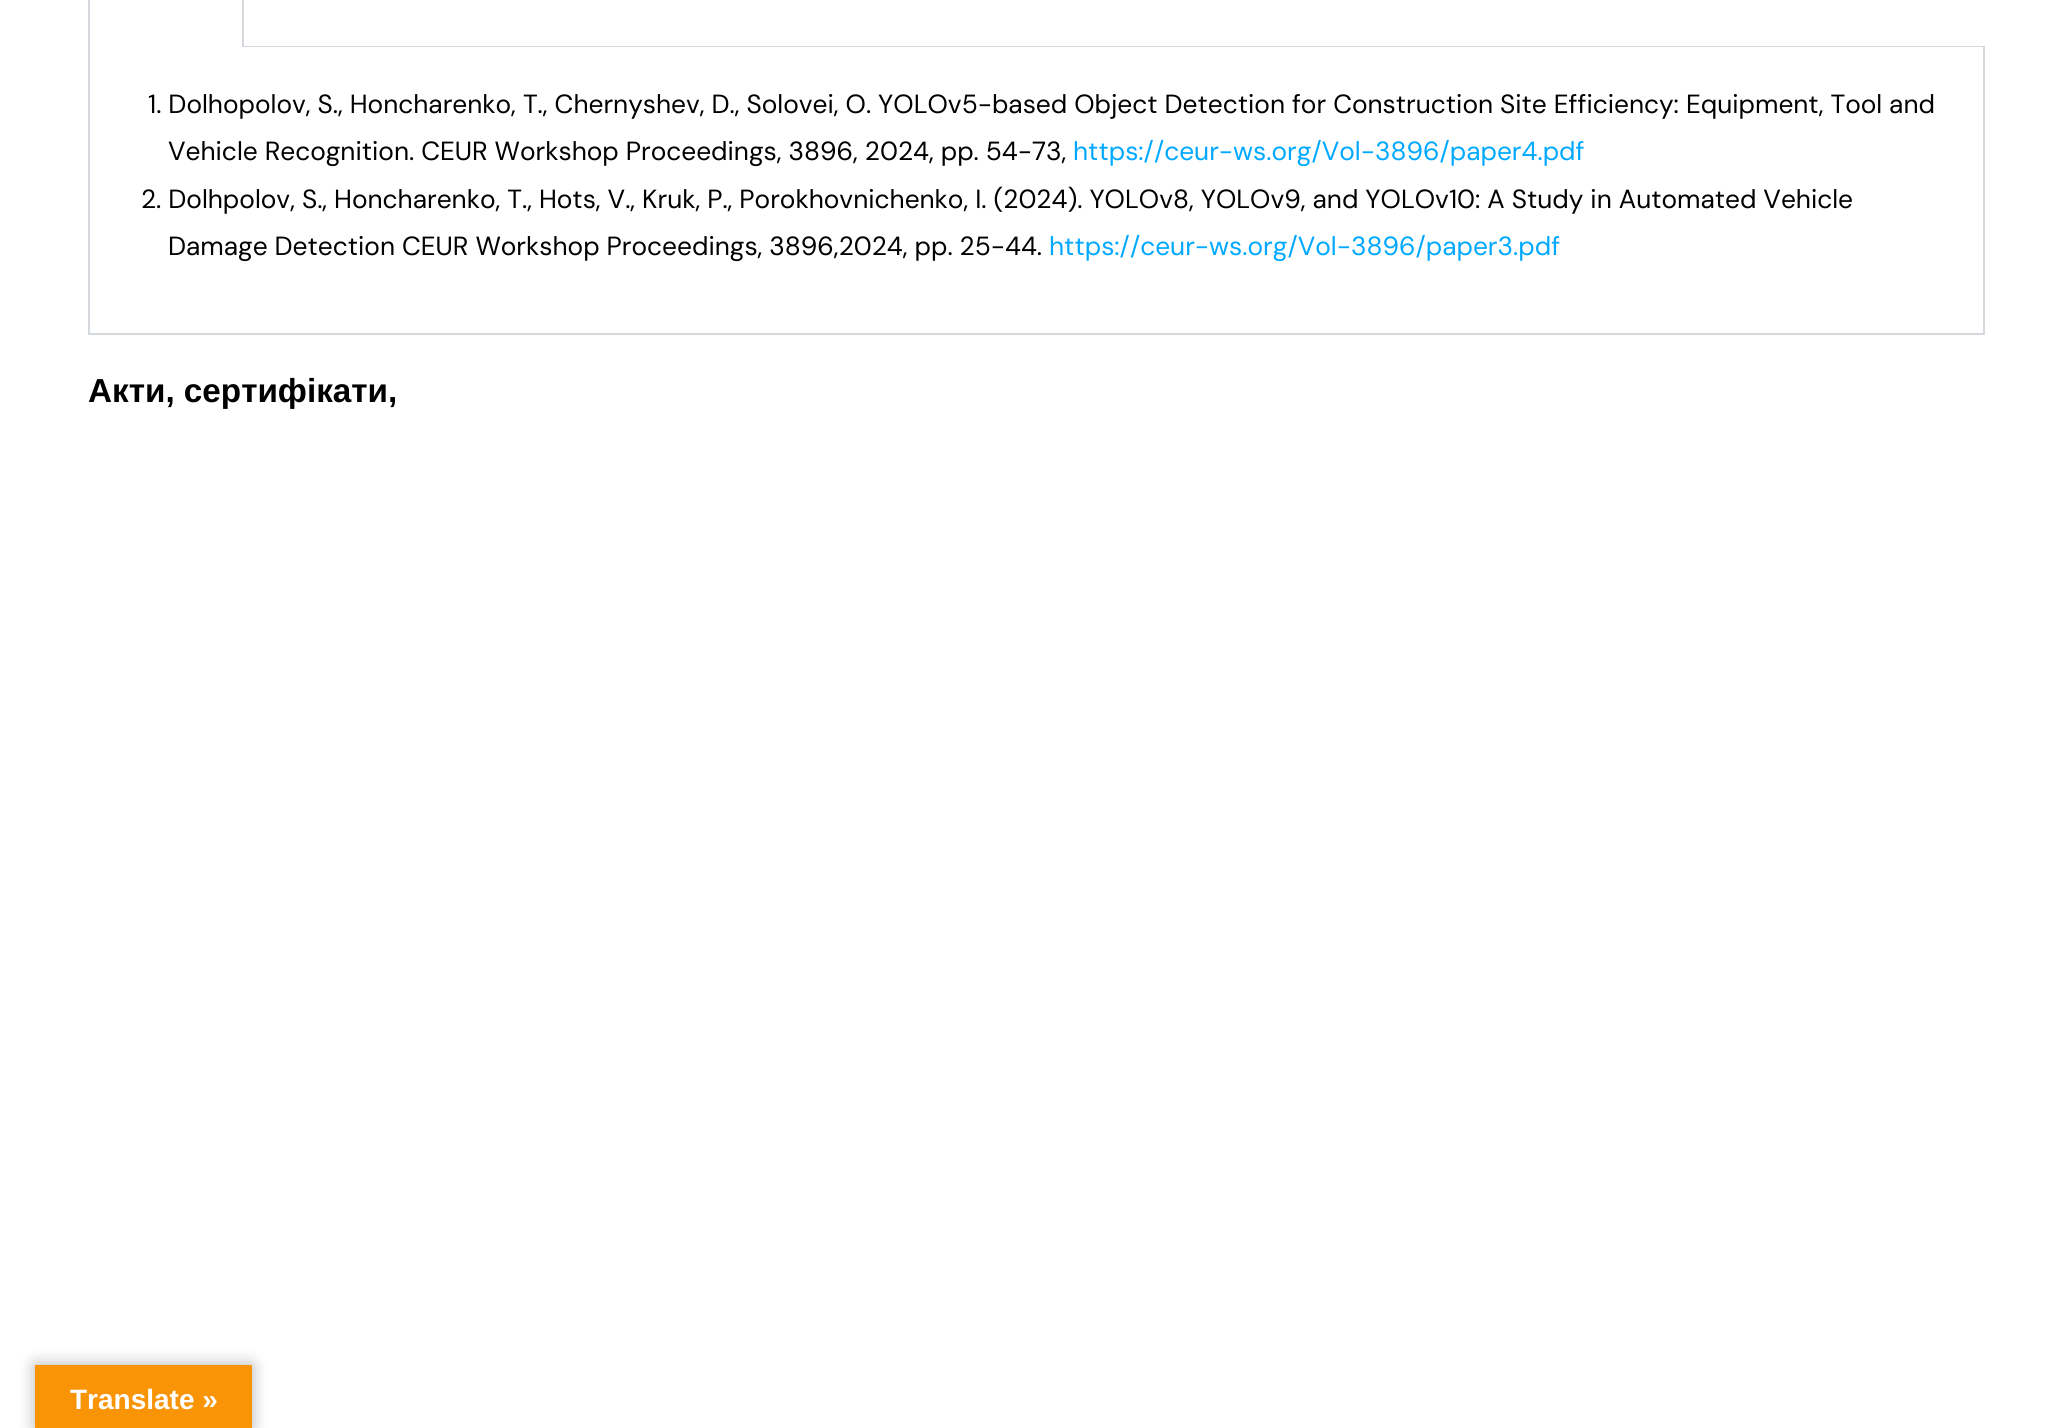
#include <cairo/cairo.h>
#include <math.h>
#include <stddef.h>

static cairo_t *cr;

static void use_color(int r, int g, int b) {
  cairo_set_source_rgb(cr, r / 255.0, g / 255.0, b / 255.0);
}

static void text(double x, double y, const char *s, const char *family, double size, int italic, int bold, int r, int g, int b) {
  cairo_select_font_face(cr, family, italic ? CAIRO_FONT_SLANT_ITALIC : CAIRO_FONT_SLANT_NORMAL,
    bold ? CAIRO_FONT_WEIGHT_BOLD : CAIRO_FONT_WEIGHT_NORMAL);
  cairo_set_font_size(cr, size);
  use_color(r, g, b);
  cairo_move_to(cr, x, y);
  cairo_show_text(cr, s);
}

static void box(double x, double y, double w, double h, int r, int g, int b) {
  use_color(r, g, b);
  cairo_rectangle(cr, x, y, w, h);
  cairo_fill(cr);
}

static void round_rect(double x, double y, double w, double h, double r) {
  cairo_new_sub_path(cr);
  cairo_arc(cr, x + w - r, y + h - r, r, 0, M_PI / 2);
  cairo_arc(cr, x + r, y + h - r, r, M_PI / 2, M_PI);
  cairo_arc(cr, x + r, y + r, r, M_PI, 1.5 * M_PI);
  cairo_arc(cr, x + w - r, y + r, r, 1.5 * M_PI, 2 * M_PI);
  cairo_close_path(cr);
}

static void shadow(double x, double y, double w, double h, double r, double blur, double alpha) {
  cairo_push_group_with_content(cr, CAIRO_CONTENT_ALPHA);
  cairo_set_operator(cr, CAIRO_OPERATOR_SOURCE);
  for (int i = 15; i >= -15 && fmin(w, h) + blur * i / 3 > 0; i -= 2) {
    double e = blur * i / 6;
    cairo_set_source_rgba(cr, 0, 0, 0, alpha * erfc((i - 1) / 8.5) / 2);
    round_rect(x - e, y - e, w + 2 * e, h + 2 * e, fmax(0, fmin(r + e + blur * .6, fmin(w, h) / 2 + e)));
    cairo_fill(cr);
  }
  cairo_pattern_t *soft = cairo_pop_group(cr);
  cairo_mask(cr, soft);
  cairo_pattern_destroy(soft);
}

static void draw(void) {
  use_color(255, 255, 255);
  cairo_paint(cr);
  box(242, 0, 2, 47, 213, 216, 220);
  box(242, 46, 1743, 1, 213, 216, 220);
  box(1983, 47, 2, 287, 213, 216, 220);
  box(88, 333, 1897, 2, 213, 216, 220);
  box(88, 0, 2, 334, 213, 216, 220);
  use_color(0, 0, 0);
  shadow(35, 1365, 217, 63, 0, 8, 0.3);
  box(35, 1365, 217, 63, 248, 148, 6);
  text(148, 113, "1. Dolhopolov, S., Honcharenko, T., Chernyshev, D., Solovei, O. YOLOv5-based Object Detection for Construction Site Efficiency: Equipment, Tool and", "DM Sans", 26.25, 0, 0, 0, 0, 0);
  text(168, 160, "Vehicle Recognition. CEUR Workshop Proceedings, 3896, 2024, pp. 54-73,", "DM Sans", 26.25, 0, 0, 0, 0, 0);
  text(1073, 160, "https://ceur-ws.org/Vol-3896/paper4.pdf", "DM Sans", 26.25, 0, 0, 0, 169, 255);
  text(141, 208, "2. Dolhpolov, S., Honcharenko, T., Hots, V., Kruk, P., Porokhovnichenko, I. (2024). YOLOv8, YOLOv9, and YOLOv10: A Study in Automated Vehicle", "DM Sans", 26.25, 0, 0, 0, 0, 0);
  text(168, 255, "Damage Detection CEUR Workshop Proceedings, 3896,2024, pp. 25-44.", "DM Sans", 26.25, 0, 0, 0, 0, 0);
  text(1049, 255, "https://ceur-ws.org/Vol-3896/paper3.pdf", "DM Sans", 26.25, 0, 0, 0, 169, 255);
  text(88, 402, "Акти, сертифікати,", "Liberation Sans", 33.25, 0, 1, 0, 0, 0);
  text(70, 1409, "Translate »", "Liberation Sans", 28, 0, 1, 255, 255, 255);
}

int main(void) {
  cairo_surface_t *surface = cairo_image_surface_create(CAIRO_FORMAT_RGB24, 2071, 1428);
  cr = cairo_create(surface);
  cairo_font_options_t *options = cairo_font_options_create();
  cairo_font_options_set_hint_metrics(options, CAIRO_HINT_METRICS_OFF);
  cairo_font_options_set_hint_style(options, CAIRO_HINT_STYLE_NONE);
  cairo_set_font_options(cr, options);
  cairo_set_miter_limit(cr, 4);
  draw();
  cairo_surface_write_to_png(surface, "out.png");
  cairo_font_options_destroy(options);
  cairo_destroy(cr);
  cairo_surface_destroy(surface);
  return 0;
}
